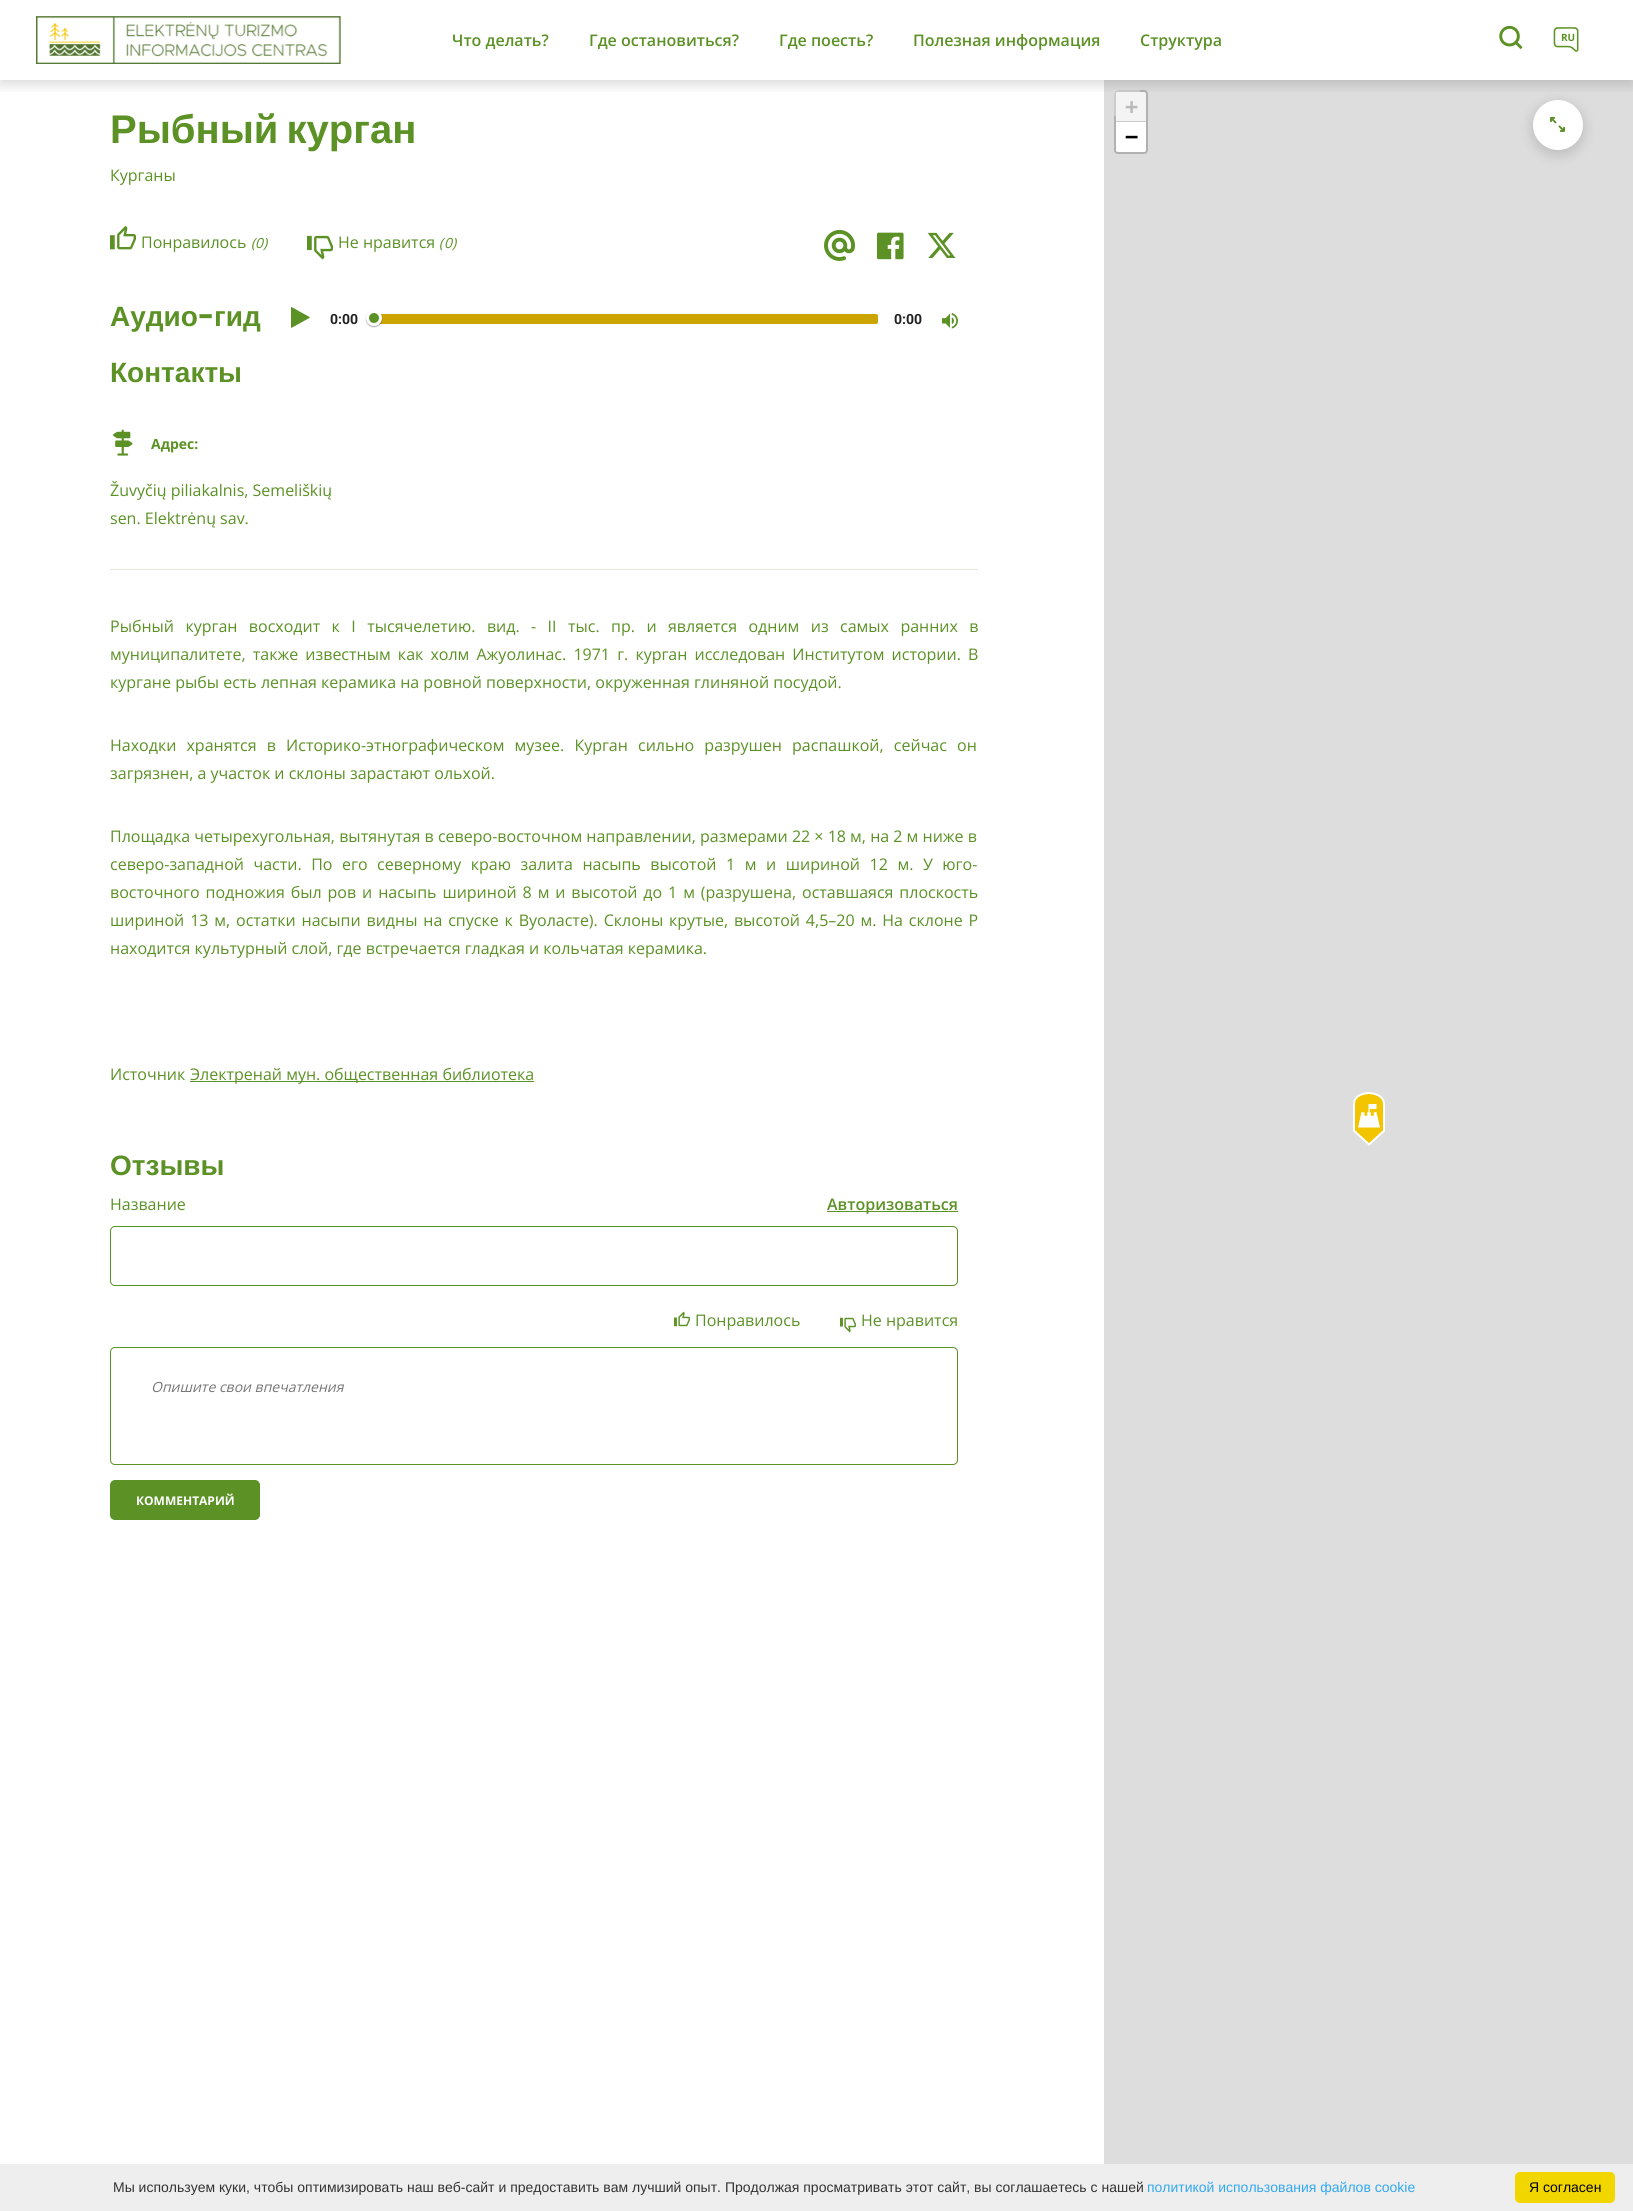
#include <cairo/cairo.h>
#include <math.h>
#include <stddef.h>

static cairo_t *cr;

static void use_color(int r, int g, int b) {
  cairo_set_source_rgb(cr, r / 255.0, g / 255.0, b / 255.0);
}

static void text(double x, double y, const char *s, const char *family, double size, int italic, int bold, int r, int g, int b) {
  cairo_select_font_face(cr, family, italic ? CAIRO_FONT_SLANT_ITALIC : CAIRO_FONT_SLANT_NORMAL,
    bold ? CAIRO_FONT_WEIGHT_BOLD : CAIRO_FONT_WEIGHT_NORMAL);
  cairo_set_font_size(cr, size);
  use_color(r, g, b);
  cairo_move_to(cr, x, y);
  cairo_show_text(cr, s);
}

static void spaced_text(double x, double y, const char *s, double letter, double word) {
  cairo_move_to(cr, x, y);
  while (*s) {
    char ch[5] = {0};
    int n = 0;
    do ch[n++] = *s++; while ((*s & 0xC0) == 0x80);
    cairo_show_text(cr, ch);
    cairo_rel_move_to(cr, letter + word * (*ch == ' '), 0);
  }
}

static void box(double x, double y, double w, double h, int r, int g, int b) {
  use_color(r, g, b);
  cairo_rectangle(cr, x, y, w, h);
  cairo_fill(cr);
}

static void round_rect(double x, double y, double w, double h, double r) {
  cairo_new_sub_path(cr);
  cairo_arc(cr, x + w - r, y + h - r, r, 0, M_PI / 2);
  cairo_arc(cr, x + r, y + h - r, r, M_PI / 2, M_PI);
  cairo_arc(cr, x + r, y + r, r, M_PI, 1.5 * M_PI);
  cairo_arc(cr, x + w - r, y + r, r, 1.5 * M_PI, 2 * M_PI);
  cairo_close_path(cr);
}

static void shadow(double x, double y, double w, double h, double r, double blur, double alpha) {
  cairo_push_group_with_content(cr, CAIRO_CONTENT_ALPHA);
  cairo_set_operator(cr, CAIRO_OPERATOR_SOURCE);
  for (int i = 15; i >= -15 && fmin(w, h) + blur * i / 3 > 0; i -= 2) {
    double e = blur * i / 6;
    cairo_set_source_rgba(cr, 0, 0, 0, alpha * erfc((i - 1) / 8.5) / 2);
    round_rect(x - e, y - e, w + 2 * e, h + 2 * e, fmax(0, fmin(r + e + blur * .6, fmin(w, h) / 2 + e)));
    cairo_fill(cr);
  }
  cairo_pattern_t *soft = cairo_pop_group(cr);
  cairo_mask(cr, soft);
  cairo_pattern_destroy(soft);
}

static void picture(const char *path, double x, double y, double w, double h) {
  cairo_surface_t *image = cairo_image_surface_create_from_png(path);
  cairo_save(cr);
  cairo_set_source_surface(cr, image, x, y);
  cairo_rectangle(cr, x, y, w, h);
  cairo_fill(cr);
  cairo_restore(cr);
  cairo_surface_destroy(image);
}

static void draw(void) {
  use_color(255, 255, 255);
  cairo_paint(cr);
  box(1104, 80, 529, 2084, 221, 221, 221);
  use_color(255, 255, 255);
  round_rect(1114, 90, 27, 27, 3);
  cairo_fill(cr);
  round_rect(1115, 91, 32, 62, 3);
  cairo_set_source_rgba(cr, 0, 0, 0, 0.2);
  cairo_stroke(cr);
  use_color(244, 244, 244);
  cairo_new_path(cr);
  cairo_move_to(cr, 1118, 92);
  cairo_line_to(cr, 1144, 92);
  cairo_curve_to(cr, 1145, 92, 1146, 93, 1146, 94);
  cairo_line_to(cr, 1146, 122);
  cairo_line_to(cr, 1116, 122);
  cairo_line_to(cr, 1116, 94);
  cairo_curve_to(cr, 1116, 93, 1117, 92, 1118, 92);
  cairo_close_path(cr);
  cairo_fill(cr);
  use_color(0, 0, 0);
  shadow(1533, 104, 50, 50, 25, 7, 0.16);
  use_color(255, 255, 255);
  cairo_arc(cr, 1558, 125, 25, 0, 2 * M_PI);
  cairo_fill(cr);
  cairo_save(cr);
  cairo_rectangle(cr, 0, 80, 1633, 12);
  cairo_clip(cr);
  use_color(0, 0, 0);
  shadow(0, 4, 1633, 80, 0, 7, 0.16);
  cairo_restore(cr);
  picture("img_01.png", 36, 16, 305, 48);
  picture("img_02.png", 1499, 25, 24, 25);
  picture("img_04.png", 110, 225, 26, 25);
  picture("img_05.png", 307, 235, 26, 25);
  picture("img_06.png", 824, 230, 31, 31);
  picture("img_07.png", 877, 232, 27, 28);
  picture("img_08.png", 927, 232, 29, 26);
  picture("img_09.png", 291, 307, 19, 21);
  use_color(203, 164, 0);
  round_rect(374, 314, 504, 10, 2);
  cairo_fill(cr);
  use_color(0, 0, 0);
  shadow(366, 311, 16, 16, 8, 0.5, 0.32);
  use_color(91, 145, 37);
  cairo_arc(cr, 374, 318, 6.5, 0, 2 * M_PI);
  cairo_fill_preserve(cr);
  use_color(255, 255, 255);
  cairo_set_line_width(cr, 3);
  cairo_stroke(cr);
  picture("img_10.png", 942, 313, 16, 16);
  picture("img_11.png", 113, 429, 20, 27);
  box(110, 569, 868, 1, 222, 233, 211);
  box(190, 1081, 344, 1, 91, 145, 37);
  box(827, 1211, 131, 1, 91, 145, 37);
  round_rect(110.5, 1226.5, 847, 59, 4.5);
  cairo_set_line_width(cr, 1);
  cairo_stroke(cr);
  picture("img_12.png", 674, 1311, 16, 16);
  picture("img_13.png", 840, 1317, 16, 16);
  round_rect(110.5, 1347.5, 847, 117, 4.5);
  cairo_stroke(cr);
  round_rect(111, 1481, 148, 38, 4);
  cairo_fill_preserve(cr);
  cairo_set_line_width(cr, 2);
  cairo_stroke(cr);
  box(1116, 121, 30, 1, 204, 204, 204);
  use_color(255, 255, 255);
  cairo_new_path(cr);
  cairo_move_to(cr, 1116, 122);
  cairo_line_to(cr, 1146, 122);
  cairo_line_to(cr, 1146, 150);
  cairo_curve_to(cr, 1146, 151, 1145, 152, 1144, 152);
  cairo_line_to(cr, 1118, 152);
  cairo_curve_to(cr, 1117, 152, 1116, 151, 1116, 150);
  cairo_close_path(cr);
  cairo_fill(cr);
  picture("img_14.png", 1353, 1092, 32, 54);
  picture("img_15.png", 1550, 116, 15, 16);
  box(0, 2164, 1633, 47, 238, 238, 238);
  use_color(241, 214, 0);
  round_rect(1515, 2172, 100, 31, 5);
  cairo_fill(cr);
  text(452, 46, "Что делать?", "Open Sans SemiBold", 16, 0, 0, 91, 145, 37);
  text(589, 46, "Где остановиться?", "Open Sans SemiBold", 16, 0, 0, 91, 145, 37);
  text(779, 46, "Где поесть?", "Open Sans SemiBold", 16, 0, 0, 91, 145, 37);
  text(913, 46, "Полезная информация", "Open Sans SemiBold", 16, 0, 0, 91, 145, 37);
  text(1140, 46, "Структура", "Open Sans SemiBold", 16, 0, 0, 91, 145, 37);
  text(1561, 41, "RU", "Open Sans", 10, 0, 1, 91, 145, 37);
  picture("img_03.png", 1553, 27, 26, 25);
  cairo_select_font_face(cr, "Liberation Sans", CAIRO_FONT_SLANT_NORMAL, CAIRO_FONT_WEIGHT_BOLD);
  cairo_set_font_size(cr, 40);
  spaced_text(110, 143, "Рыбный курган", 0, -3);
  text(110, 181, "Курганы", "Open Sans", 16, 0, 0, 91, 145, 37);
  text(141, 248, "Понравилось", "Open Sans", 16, 0, 0, 91, 145, 37);
  text(251, 248, "(", "Open Sans", 14, 1, 0, 91, 145, 37);
  text(263, 248, ")", "Open Sans", 14, 1, 0, 91, 145, 37);
  text(255, 248, "0", "Open Sans", 14, 1, 0, 91, 145, 37);
  text(338, 248, "Не нравится", "Open Sans", 16, 0, 0, 91, 145, 37);
  text(439, 248, "(", "Open Sans", 14, 1, 0, 91, 145, 37);
  text(452, 248, ")", "Open Sans", 14, 1, 0, 91, 145, 37);
  text(444, 248, "0", "Open Sans", 14, 1, 0, 91, 145, 37);
  text(110, 326, "Аудио", "Liberation Sans", 28, 0, 1, 91, 145, 37);
  text(198, 326, "-", "Poppins", 28, 0, 1, 91, 145, 37);
  text(214, 326, "гид", "Liberation Sans", 28, 0, 1, 91, 145, 37);
  text(330, 324, "0:00", "Roboto", 14, 0, 1, 33, 33, 33);
  text(894, 324, "0:00", "Roboto", 14, 0, 1, 33, 33, 33);
  text(110, 382, "Контакты", "Liberation Sans", 28, 0, 1, 91, 145, 37);
  text(151, 449, "Адрес:", "Open Sans", 14, 0, 1, 91, 145, 37);
  text(110, 496, "Žuvyčių piliakalnis, Semeliškių", "Open Sans", 16, 0, 0, 91, 145, 37);
  text(110, 524, "sen. Elektrėnų sav.", "Open Sans", 16, 0, 0, 91, 145, 37);
  spaced_text(110, 632, "Рыбный курган восходит к I тысячелетию. вид. - II тыс. пр. и является одним из самых ранних в", 0, 7.25);
  spaced_text(110, 660, "муниципалитете, также известным как холм Ажуолинас. 1971 г. курган исследован Институтом истории. В", 0, 3);
  text(110, 688, "кургане рыбы есть лепная керамика на ровной поверхности, окруженная глиняной посудой.", "Open Sans", 16, 0, 0, 91, 145, 37);
  spaced_text(110, 751, "Находки хранятся в Историко-этнографическом музее. Курган сильно разрушен распашкой, сейчас он", 0, 6);
  text(110, 779, "загрязнен, а участок и склоны зарастают ольхой.", "Open Sans", 16, 0, 0, 91, 145, 37);
  text(110, 842, "Площадка четырехугольная, вытянутая в северо-восточном направлении, размерами 22 × 18 м, на 2 м ниже в", "Open Sans", 16, 0, 0, 91, 145, 37);
  spaced_text(110, 870, "северо-западной части. По его северному краю залита насыпь высотой 1 м и шириной 12 м. У юго-", 0, 5.4);
  spaced_text(110, 898, "восточного подножия был ров и насыпь шириной 8 м и высотой до 1 м (разрушена, оставшаяся плоскость", 0, 1.75);
  spaced_text(110, 926, "шириной 13 м, остатки насыпи видны на спуске к Вуоласте). Склоны крутые, высотой 4,5–20 м. На склоне Р", 0, 1.7);
  text(110, 954, "находится культурный слой, где встречается гладкая и кольчатая керамика.", "Open Sans", 16, 0, 0, 91, 145, 37);
  text(110, 1080, "Источник", "Open Sans", 16, 0, 0, 91, 145, 37);
  text(190, 1080, "Электренай мун. общественная библиотека", "Open Sans", 16, 0, 0, 91, 145, 37);
  text(110, 1175, "Отзывы", "Liberation Sans", 28, 0, 1, 91, 145, 37);
  text(110, 1210, "Название", "Open Sans", 16, 0, 0, 91, 145, 37);
  text(827, 1210, "Авторизоваться", "Open Sans SemiBold", 16, 0, 0, 91, 145, 37);
  text(695, 1326, "Понравилось", "Open Sans", 16, 0, 0, 91, 145, 37);
  text(861, 1326, "Не нравится", "Open Sans", 16, 0, 0, 91, 145, 37);
  text(151, 1392, "Опишите свои впечатления", "Open Sans", 14, 1, 0, 117, 117, 117);
  text(136, 1505, "КОММЕНТАРИЙ", "Open Sans", 12, 0, 1, 255, 255, 255);
  text(1125, 114, "+", "DejaVu Sans Mono", 22, 0, 1, 187, 187, 187);
  text(1125, 144, "−", "DejaVu Sans Mono", 22, 0, 1, 0, 0, 0);
  text(113, 2192, "Мы используем куки, чтобы оптимизировать наш веб-сайт и предоставить вам лучший опыт. Продолжая просматривать этот сайт, вы соглашаетесь с нашей", "Liberation Sans", 14, 0, 0, 51, 51, 51);
  text(1147, 2192, "политикой использования файлов cookie", "Liberation Sans", 14, 0, 0, 49, 168, 240);
  text(1529, 2192, "Я согласен", "Liberation Sans", 14, 0, 0, 0, 0, 0);
}

int main(void) {
  cairo_surface_t *surface = cairo_image_surface_create(CAIRO_FORMAT_RGB24, 1633, 2211);
  cr = cairo_create(surface);
  cairo_font_options_t *options = cairo_font_options_create();
  cairo_font_options_set_hint_metrics(options, CAIRO_HINT_METRICS_OFF);
  cairo_font_options_set_hint_style(options, CAIRO_HINT_STYLE_NONE);
  cairo_set_font_options(cr, options);
  cairo_set_miter_limit(cr, 4);
  draw();
  cairo_surface_write_to_png(surface, "out.png");
  cairo_font_options_destroy(options);
  cairo_destroy(cr);
  cairo_surface_destroy(surface);
  return 0;
}
